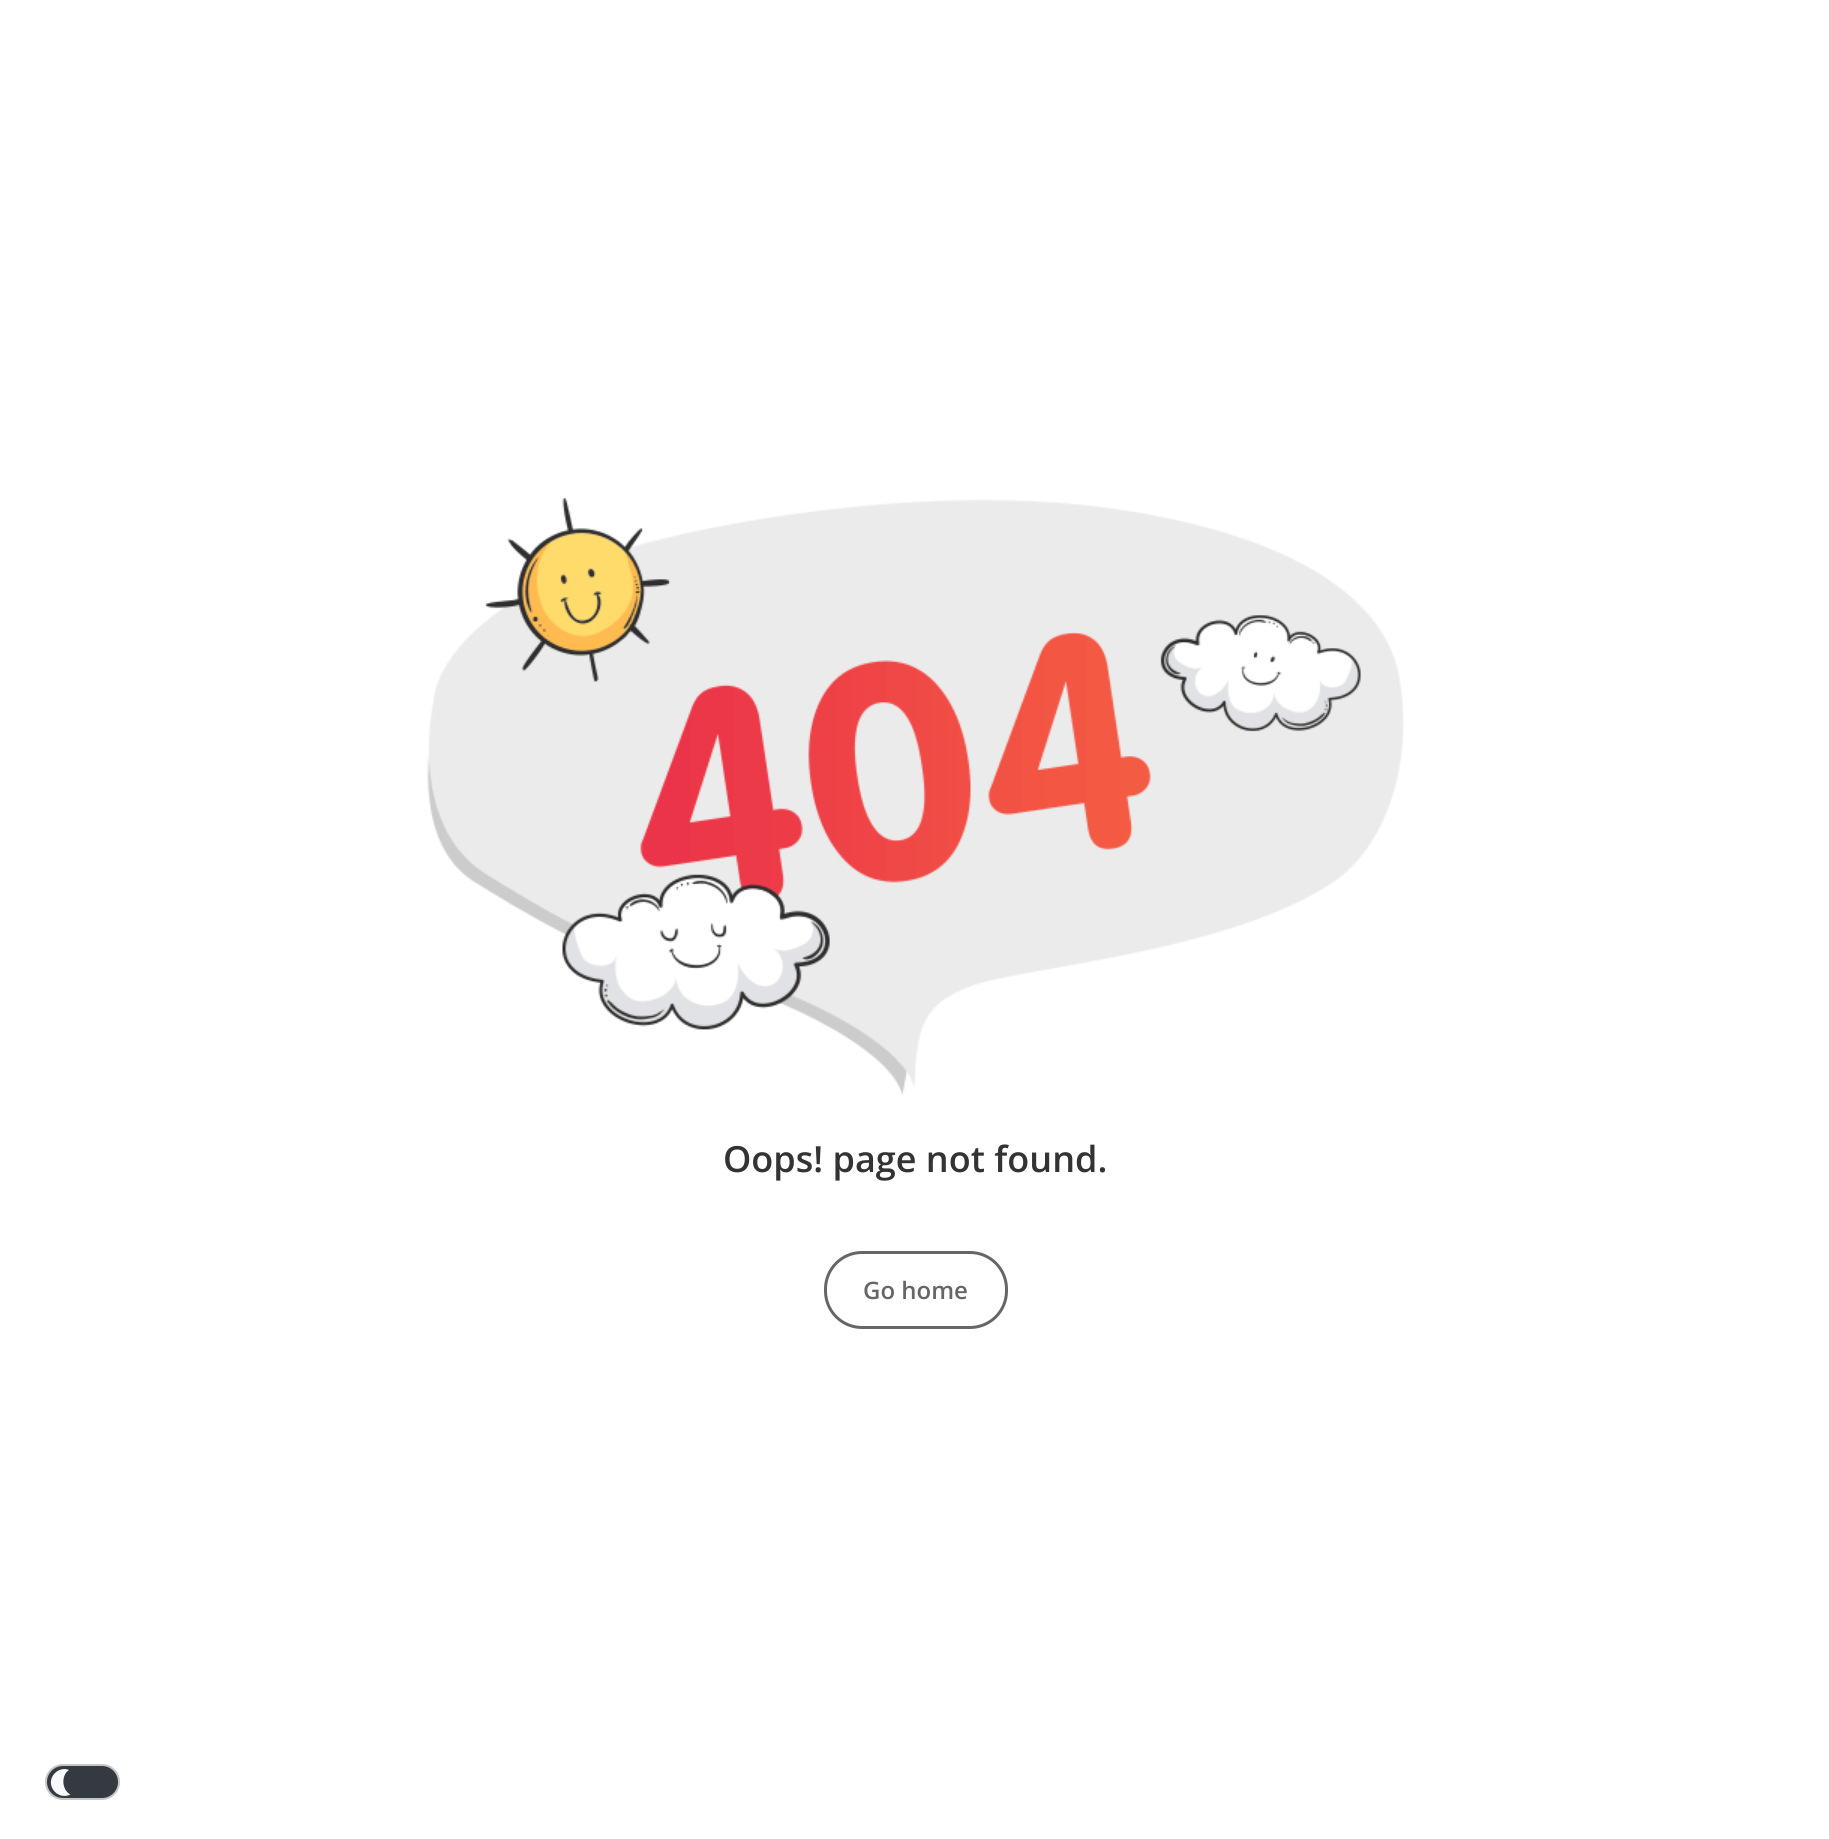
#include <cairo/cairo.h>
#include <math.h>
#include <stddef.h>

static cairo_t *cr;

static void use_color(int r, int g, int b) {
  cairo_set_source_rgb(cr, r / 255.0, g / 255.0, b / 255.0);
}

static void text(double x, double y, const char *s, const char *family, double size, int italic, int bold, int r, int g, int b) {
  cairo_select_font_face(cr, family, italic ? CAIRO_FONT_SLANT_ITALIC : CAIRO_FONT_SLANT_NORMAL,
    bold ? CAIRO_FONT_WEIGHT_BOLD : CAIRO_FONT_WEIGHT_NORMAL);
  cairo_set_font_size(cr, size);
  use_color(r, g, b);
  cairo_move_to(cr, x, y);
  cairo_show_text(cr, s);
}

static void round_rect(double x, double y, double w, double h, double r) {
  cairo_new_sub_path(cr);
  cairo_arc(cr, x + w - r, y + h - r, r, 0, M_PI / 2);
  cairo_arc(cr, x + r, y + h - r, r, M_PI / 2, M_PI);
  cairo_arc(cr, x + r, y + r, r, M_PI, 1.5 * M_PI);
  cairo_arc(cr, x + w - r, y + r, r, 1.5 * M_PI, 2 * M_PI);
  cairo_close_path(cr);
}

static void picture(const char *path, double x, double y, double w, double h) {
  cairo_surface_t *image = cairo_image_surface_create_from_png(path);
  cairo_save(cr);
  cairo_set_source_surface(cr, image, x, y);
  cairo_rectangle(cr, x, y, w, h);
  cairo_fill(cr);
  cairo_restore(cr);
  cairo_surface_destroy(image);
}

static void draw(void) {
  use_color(255, 255, 255);
  cairo_paint(cr);
  picture("img_01.png", 427, 498, 977, 598);
  round_rect(825.5, 1252.5, 181, 75, 36.5);
  use_color(102, 102, 102);
  cairo_set_line_width(cr, 3);
  cairo_stroke(cr);
  use_color(52, 58, 64);
  round_rect(46, 1765, 73, 34, 17);
  cairo_fill_preserve(cr);
  use_color(198, 198, 198);
  cairo_set_line_width(cr, 2);
  cairo_stroke(cr);
  use_color(248, 249, 250);
  cairo_new_path(cr);
  cairo_move_to(cr, 64.5, 1769);
  cairo_curve_to(cr, 61, 1769, 57.5, 1770.5, 55, 1773);
  cairo_curve_to(cr, 44, 1784, 57, 1801, 70.5, 1794.5);
  cairo_curve_to(cr, 61.5, 1790, 61, 1775, 69, 1770);
  cairo_curve_to(cr, 68, 1769.5, 66, 1769, 64.5, 1769);
  cairo_close_path(cr);
  cairo_fill(cr);
  text(723, 1172, "Oops! page not found.", "Open Sans SemiBold", 36, 0, 0, 51, 51, 51);
  text(863, 1299, "Go home", "Open Sans SemiBold", 24, 0, 0, 102, 102, 102);
}

int main(void) {
  cairo_surface_t *surface = cairo_image_surface_create(CAIRO_FORMAT_RGB24, 1829, 1839);
  cr = cairo_create(surface);
  cairo_font_options_t *options = cairo_font_options_create();
  cairo_font_options_set_hint_metrics(options, CAIRO_HINT_METRICS_OFF);
  cairo_font_options_set_hint_style(options, CAIRO_HINT_STYLE_NONE);
  cairo_set_font_options(cr, options);
  cairo_set_miter_limit(cr, 4);
  draw();
  cairo_surface_write_to_png(surface, "out.png");
  cairo_font_options_destroy(options);
  cairo_destroy(cr);
  cairo_surface_destroy(surface);
  return 0;
}
